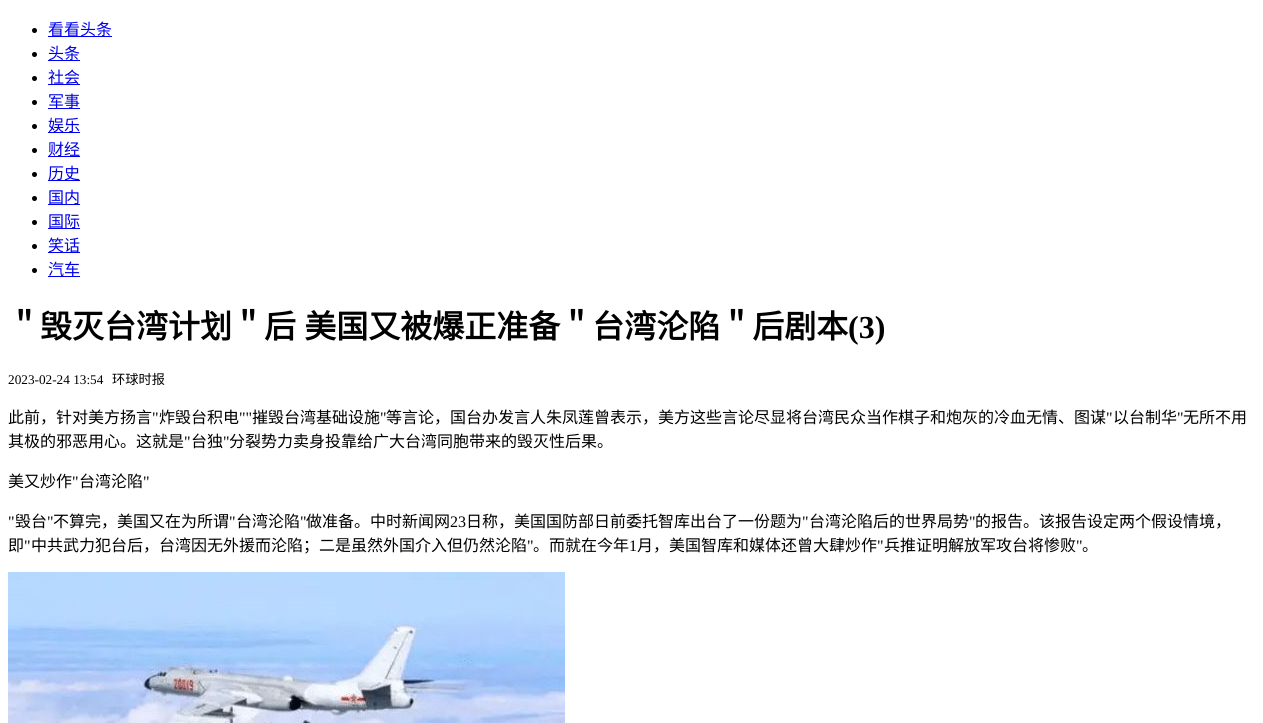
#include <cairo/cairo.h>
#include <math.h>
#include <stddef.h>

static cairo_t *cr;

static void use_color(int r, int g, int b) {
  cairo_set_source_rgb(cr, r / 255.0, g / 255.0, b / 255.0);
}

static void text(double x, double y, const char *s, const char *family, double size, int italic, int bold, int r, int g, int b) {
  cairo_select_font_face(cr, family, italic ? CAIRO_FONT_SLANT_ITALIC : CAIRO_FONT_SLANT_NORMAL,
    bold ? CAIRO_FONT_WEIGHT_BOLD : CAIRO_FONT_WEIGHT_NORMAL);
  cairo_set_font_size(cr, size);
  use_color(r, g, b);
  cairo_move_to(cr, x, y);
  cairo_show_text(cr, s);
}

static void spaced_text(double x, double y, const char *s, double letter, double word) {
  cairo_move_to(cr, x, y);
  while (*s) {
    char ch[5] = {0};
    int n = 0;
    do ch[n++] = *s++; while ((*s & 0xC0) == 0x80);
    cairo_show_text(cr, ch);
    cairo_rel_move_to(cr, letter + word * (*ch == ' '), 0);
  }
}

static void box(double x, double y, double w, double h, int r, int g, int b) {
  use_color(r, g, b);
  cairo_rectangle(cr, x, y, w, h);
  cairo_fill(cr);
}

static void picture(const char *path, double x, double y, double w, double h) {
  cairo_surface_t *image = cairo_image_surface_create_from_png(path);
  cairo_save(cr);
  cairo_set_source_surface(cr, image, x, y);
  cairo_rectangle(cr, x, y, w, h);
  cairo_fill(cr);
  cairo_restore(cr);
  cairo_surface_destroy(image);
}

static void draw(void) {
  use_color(255, 255, 255);
  cairo_paint(cr);
  use_color(0, 0, 0);
  cairo_arc(cr, 34.5, 30.5, 2.5, 0, 2 * M_PI);
  cairo_fill(cr);
  box(48, 36, 64, 1, 0, 0, 238);
  use_color(0, 0, 0);
  cairo_arc(cr, 34.5, 54.5, 2.5, 0, 2 * M_PI);
  cairo_fill(cr);
  box(48, 60, 32, 1, 0, 0, 238);
  use_color(0, 0, 0);
  cairo_arc(cr, 34.5, 78.5, 2.5, 0, 2 * M_PI);
  cairo_fill(cr);
  box(48, 84, 32, 1, 0, 0, 238);
  use_color(0, 0, 0);
  cairo_arc(cr, 34.5, 102.5, 2.5, 0, 2 * M_PI);
  cairo_fill(cr);
  box(48, 108, 32, 1, 0, 0, 238);
  use_color(0, 0, 0);
  cairo_arc(cr, 34.5, 126.5, 2.5, 0, 2 * M_PI);
  cairo_fill(cr);
  box(48, 132, 32, 1, 0, 0, 238);
  use_color(0, 0, 0);
  cairo_arc(cr, 34.5, 150.5, 2.5, 0, 2 * M_PI);
  cairo_fill(cr);
  box(48, 156, 32, 1, 0, 0, 238);
  use_color(0, 0, 0);
  cairo_arc(cr, 34.5, 174.5, 2.5, 0, 2 * M_PI);
  cairo_fill(cr);
  box(48, 180, 32, 1, 0, 0, 238);
  use_color(0, 0, 0);
  cairo_arc(cr, 34.5, 198.5, 2.5, 0, 2 * M_PI);
  cairo_fill(cr);
  box(48, 204, 32, 1, 0, 0, 238);
  use_color(0, 0, 0);
  cairo_arc(cr, 34.5, 222.5, 2.5, 0, 2 * M_PI);
  cairo_fill(cr);
  box(48, 228, 32, 1, 0, 0, 238);
  use_color(0, 0, 0);
  cairo_arc(cr, 34.5, 246.5, 2.5, 0, 2 * M_PI);
  cairo_fill(cr);
  box(48, 252, 32, 1, 0, 0, 238);
  use_color(0, 0, 0);
  cairo_arc(cr, 34.5, 270.5, 2.5, 0, 2 * M_PI);
  cairo_fill(cr);
  box(48, 276, 32, 1, 0, 0, 238);
  picture("img_01.png", 8, 572, 557, 151);
  text(48, 35, "看看头条", "Noto Sans CJK SC", 16, 0, 0, 0, 0, 238);
  text(48, 59, "头条", "Noto Sans CJK SC", 16, 0, 0, 0, 0, 238);
  text(48, 83, "社会", "Noto Sans CJK SC", 16, 0, 0, 0, 0, 238);
  text(48, 107, "军事", "Noto Sans CJK SC", 16, 0, 0, 0, 0, 238);
  text(48, 131, "娱乐", "Noto Sans CJK SC", 16, 0, 0, 0, 0, 238);
  text(48, 155, "财经", "Noto Sans CJK SC", 16, 0, 0, 0, 0, 238);
  text(48, 179, "历史", "Noto Sans CJK SC", 16, 0, 0, 0, 0, 238);
  text(48, 203, "国内", "Noto Sans CJK SC", 16, 0, 0, 0, 0, 238);
  text(48, 227, "国际", "Noto Sans CJK SC", 16, 0, 0, 0, 0, 238);
  text(48, 251, "笑话", "Noto Sans CJK SC", 16, 0, 0, 0, 0, 238);
  text(48, 275, "汽车", "Noto Sans CJK SC", 16, 0, 0, 0, 0, 238);
  cairo_select_font_face(cr, "Noto Sans CJK SC", CAIRO_FONT_SLANT_NORMAL, CAIRO_FONT_WEIGHT_BOLD);
  cairo_set_font_size(cr, 32);
  use_color(0, 0, 0);
  spaced_text(8, 338, "＂毁灭台湾计划＂后 美国又被爆正准备＂台湾沦陷＂后剧本", 0, 1);
  text(848, 338, "(3)", "Liberation Serif", 32, 0, 1, 0, 0, 0);
  text(8, 384, "2023-02-24 13:54", "Liberation Serif", 13.25, 0, 0, 0, 0, 0);
  text(112, 384, "环球时报", "Noto Sans CJK SC", 13.25, 0, 0, 0, 0, 0);
  text(8, 423, "此前，针对美方扬言", "Noto Sans CJK SC", 16, 0, 0, 0, 0, 0);
  text(152, 423, "\"", "Liberation Serif", 16, 0, 0, 0, 0, 0);
  text(159, 423, "炸毁台积电", "Noto Sans CJK SC", 16, 0, 0, 0, 0, 0);
  text(239, 423, "\"\"", "Liberation Serif", 16, 0, 0, 0, 0, 0);
  text(252, 423, "摧毁台湾基础设施", "Noto Sans CJK SC", 16, 0, 0, 0, 0, 0);
  text(380, 423, "\"", "Liberation Serif", 16, 0, 0, 0, 0, 0);
  text(386, 423, "等言论，国台办发言人朱凤莲曾表示，美方这些言论尽显将台湾民众当作棋子和炮灰的冷血无情、图谋", "Noto Sans CJK SC", 16, 0, 0, 0, 0, 0);
  text(1106, 423, "\"", "Liberation Serif", 16, 0, 0, 0, 0, 0);
  text(1113, 423, "以台制华", "Noto Sans CJK SC", 16, 0, 0, 0, 0, 0);
  text(1177, 423, "\"", "Liberation Serif", 16, 0, 0, 0, 0, 0);
  text(1183, 423, "无所不用", "Noto Sans CJK SC", 16, 0, 0, 0, 0, 0);
  text(8, 447, "其极的邪恶用心。这就是", "Noto Sans CJK SC", 16, 0, 0, 0, 0, 0);
  text(184, 447, "\"", "Liberation Serif", 16, 0, 0, 0, 0, 0);
  text(191, 447, "台独", "Noto Sans CJK SC", 16, 0, 0, 0, 0, 0);
  text(223, 447, "\"", "Liberation Serif", 16, 0, 0, 0, 0, 0);
  text(229, 447, "分裂势力卖身投靠给广大台湾同胞带来的毁灭性后果。", "Noto Sans CJK SC", 16, 0, 0, 0, 0, 0);
  text(8, 487, "美又炒作", "Noto Sans CJK SC", 16, 0, 0, 0, 0, 0);
  text(72, 487, "\"", "Liberation Serif", 16, 0, 0, 0, 0, 0);
  text(79, 487, "台湾沦陷", "Noto Sans CJK SC", 16, 0, 0, 0, 0, 0);
  text(143, 487, "\"", "Liberation Serif", 16, 0, 0, 0, 0, 0);
  text(8, 527, "\"", "Liberation Serif", 16, 0, 0, 0, 0, 0);
  text(15, 527, "毁台", "Noto Sans CJK SC", 16, 0, 0, 0, 0, 0);
  text(47, 527, "\"", "Liberation Serif", 16, 0, 0, 0, 0, 0);
  text(53, 527, "不算完，美国又在为所谓", "Noto Sans CJK SC", 16, 0, 0, 0, 0, 0);
  text(229, 527, "\"", "Liberation Serif", 16, 0, 0, 0, 0, 0);
  text(236, 527, "台湾沦陷", "Noto Sans CJK SC", 16, 0, 0, 0, 0, 0);
  text(300, 527, "\"", "Liberation Serif", 16, 0, 0, 0, 0, 0);
  text(306, 527, "做准备。中时新闻网", "Noto Sans CJK SC", 16, 0, 0, 0, 0, 0);
  text(450, 527, "23", "Liberation Serif", 16, 0, 0, 0, 0, 0);
  text(466, 527, "日称，美国国防部日前委托智库出台了一份题为", "Noto Sans CJK SC", 16, 0, 0, 0, 0, 0);
  text(802, 527, "\"", "Liberation Serif", 16, 0, 0, 0, 0, 0);
  text(809, 527, "台湾沦陷后的世界局势", "Noto Sans CJK SC", 16, 0, 0, 0, 0, 0);
  text(969, 527, "\"", "Liberation Serif", 16, 0, 0, 0, 0, 0);
  text(975, 527, "的报告。该报告设定两个假设情境，", "Noto Sans CJK SC", 16, 0, 0, 0, 0, 0);
  text(8, 551, "即", "Noto Sans CJK SC", 16, 0, 0, 0, 0, 0);
  text(24, 551, "\"", "Liberation Serif", 16, 0, 0, 0, 0, 0);
  text(31, 551, "中共武力犯台后，台湾因无外援而沦陷；二是虽然外国介入但仍然沦陷", "Noto Sans CJK SC", 16, 0, 0, 0, 0, 0);
  text(527, 551, "\"", "Liberation Serif", 16, 0, 0, 0, 0, 0);
  text(533, 551, "。而就在今年", "Noto Sans CJK SC", 16, 0, 0, 0, 0, 0);
  text(629, 551, "1", "Liberation Serif", 16, 0, 0, 0, 0, 0);
  text(637, 551, "月，美国智库和媒体还曾大肆炒作", "Noto Sans CJK SC", 16, 0, 0, 0, 0, 0);
  text(877, 551, "\"", "Liberation Serif", 16, 0, 0, 0, 0, 0);
  text(884, 551, "兵推证明解放军攻台将惨败", "Noto Sans CJK SC", 16, 0, 0, 0, 0, 0);
  text(1076, 551, "\"", "Liberation Serif", 16, 0, 0, 0, 0, 0);
  text(1082, 551, "。", "Noto Sans CJK SC", 16, 0, 0, 0, 0, 0);
}

int main(void) {
  cairo_surface_t *surface = cairo_image_surface_create(CAIRO_FORMAT_RGB24, 1263, 723);
  cr = cairo_create(surface);
  cairo_font_options_t *options = cairo_font_options_create();
  cairo_font_options_set_hint_metrics(options, CAIRO_HINT_METRICS_OFF);
  cairo_font_options_set_hint_style(options, CAIRO_HINT_STYLE_NONE);
  cairo_set_font_options(cr, options);
  cairo_set_miter_limit(cr, 4);
  draw();
  cairo_surface_write_to_png(surface, "out.png");
  cairo_font_options_destroy(options);
  cairo_destroy(cr);
  cairo_surface_destroy(surface);
  return 0;
}
